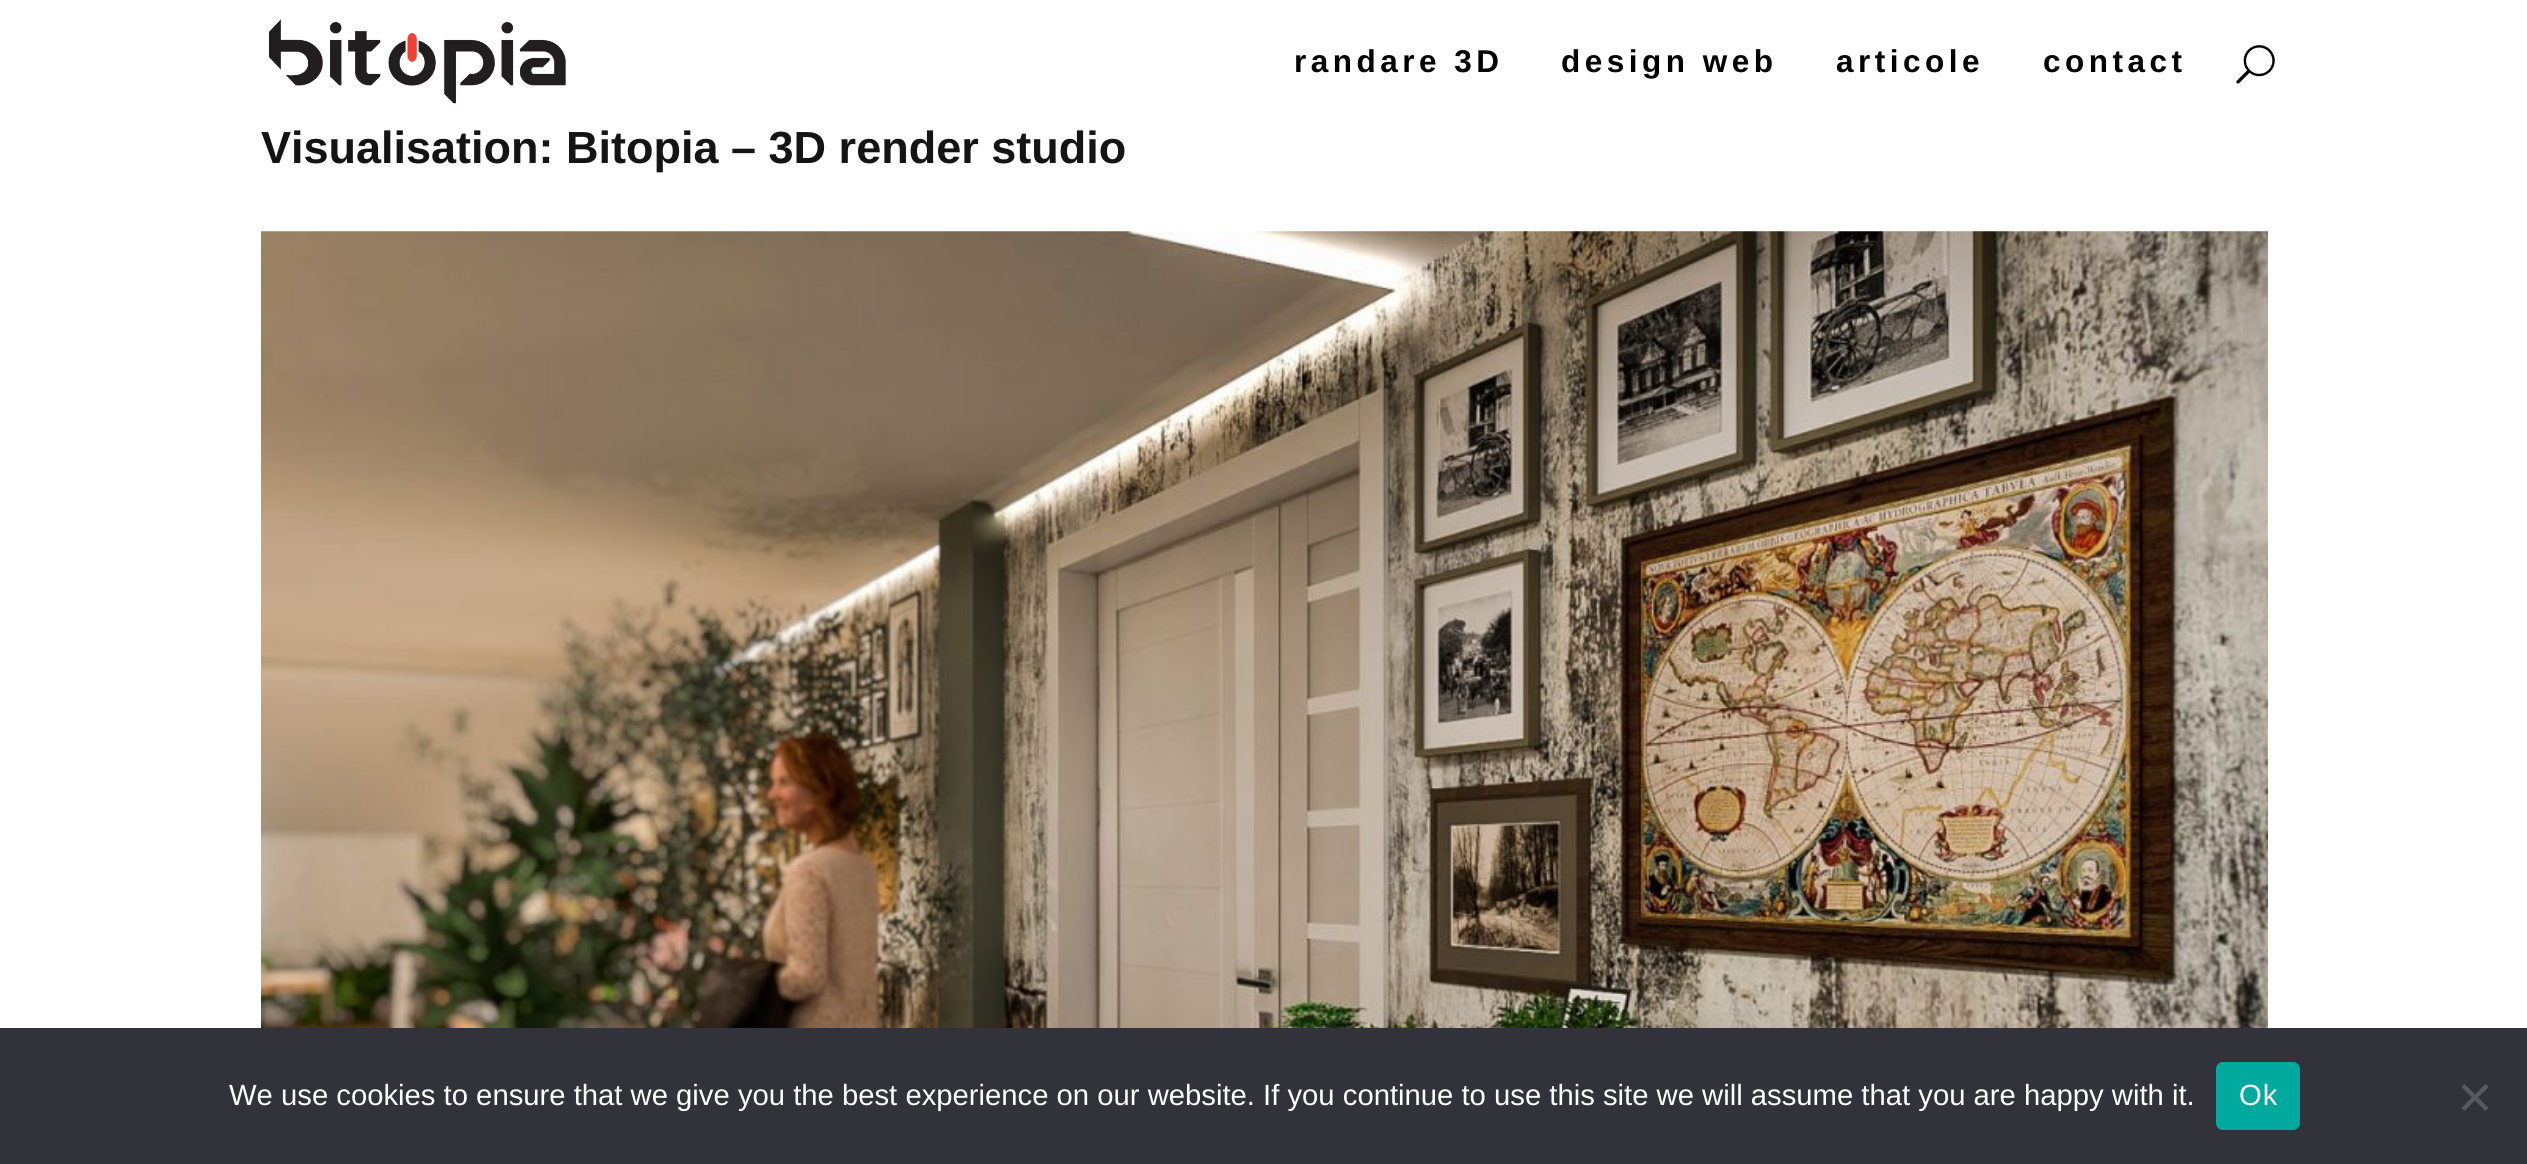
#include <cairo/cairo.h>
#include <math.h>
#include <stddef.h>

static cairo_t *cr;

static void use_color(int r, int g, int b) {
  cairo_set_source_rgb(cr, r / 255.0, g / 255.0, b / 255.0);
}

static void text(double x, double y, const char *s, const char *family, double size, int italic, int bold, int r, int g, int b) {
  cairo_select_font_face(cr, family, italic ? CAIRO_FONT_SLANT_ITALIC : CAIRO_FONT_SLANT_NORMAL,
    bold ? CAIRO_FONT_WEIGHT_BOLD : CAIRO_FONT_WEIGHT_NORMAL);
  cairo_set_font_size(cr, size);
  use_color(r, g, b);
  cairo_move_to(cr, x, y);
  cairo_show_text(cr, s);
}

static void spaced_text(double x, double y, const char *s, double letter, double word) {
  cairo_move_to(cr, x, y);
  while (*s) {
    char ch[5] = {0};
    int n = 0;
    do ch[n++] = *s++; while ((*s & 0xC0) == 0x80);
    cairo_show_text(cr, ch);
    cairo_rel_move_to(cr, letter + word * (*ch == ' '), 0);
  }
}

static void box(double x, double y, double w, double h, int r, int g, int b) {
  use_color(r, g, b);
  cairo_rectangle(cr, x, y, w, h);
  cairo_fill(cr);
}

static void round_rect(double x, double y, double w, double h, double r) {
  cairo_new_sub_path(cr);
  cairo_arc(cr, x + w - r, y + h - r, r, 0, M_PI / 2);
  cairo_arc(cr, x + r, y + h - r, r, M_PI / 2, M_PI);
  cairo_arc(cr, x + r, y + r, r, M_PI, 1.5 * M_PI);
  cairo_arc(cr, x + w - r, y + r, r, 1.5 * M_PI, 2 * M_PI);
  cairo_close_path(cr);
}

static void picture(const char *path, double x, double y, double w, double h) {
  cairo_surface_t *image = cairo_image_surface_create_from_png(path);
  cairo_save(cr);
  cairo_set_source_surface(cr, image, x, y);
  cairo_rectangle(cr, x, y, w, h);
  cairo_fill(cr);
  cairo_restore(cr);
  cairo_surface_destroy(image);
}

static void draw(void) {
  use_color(255, 255, 255);
  cairo_paint(cr);
  picture("img_01.png", 268, 19, 298, 85);
  picture("img_02.png", 2236, 45, 39, 39);
  picture("img_03.png", 261, 231, 2007, 797);
  box(0, 1028, 2527, 136, 50, 50, 58);
  use_color(0, 169, 157);
  round_rect(2216, 1062, 84, 68, 7);
  cairo_fill(cr);
  use_color(89, 89, 93);
  cairo_new_path(cr);
  cairo_move_to(cr, 2485.5, 1084);
  cairo_line_to(cr, 2488.5, 1087);
  cairo_line_to(cr, 2464.5, 1111);
  cairo_line_to(cr, 2461.5, 1108);
  cairo_close_path(cr);
  cairo_fill(cr);
  cairo_new_path(cr);
  cairo_move_to(cr, 2461.5, 1087);
  cairo_line_to(cr, 2464.5, 1084);
  cairo_line_to(cr, 2488.5, 1108);
  cairo_line_to(cr, 2485.5, 1111);
  cairo_close_path(cr);
  cairo_fill(cr);
  cairo_select_font_face(cr, "Liberation Sans", CAIRO_FONT_SLANT_NORMAL, CAIRO_FONT_WEIGHT_BOLD);
  cairo_set_font_size(cr, 31.5);
  use_color(0, 0, 0);
  spaced_text(1294, 72, "randare 3D", 4.5, 0);
  spaced_text(1561, 72, "design web", 4.5, 0);
  spaced_text(1836, 72, "articole", 4.5, 0);
  spaced_text(2043, 72, "contact", 4.5, 0);
  text(261, 163, "Visualisation: Bitopia – 3D render studio", "Liberation Sans", 45, 0, 1, 20, 20, 20);
  text(229, 1105, "We use cookies to ensure that we give you the best experience on our website. If you continue to use this site we will assume that you are happy with it.", "Liberation Sans", 29.25, 0, 0, 255, 255, 255);
  spaced_text(2239, 1105, "Ok", 1, 0);
}

int main(void) {
  cairo_surface_t *surface = cairo_image_surface_create(CAIRO_FORMAT_RGB24, 2527, 1164);
  cr = cairo_create(surface);
  cairo_font_options_t *options = cairo_font_options_create();
  cairo_font_options_set_hint_metrics(options, CAIRO_HINT_METRICS_OFF);
  cairo_font_options_set_hint_style(options, CAIRO_HINT_STYLE_NONE);
  cairo_set_font_options(cr, options);
  cairo_set_miter_limit(cr, 4);
  draw();
  cairo_surface_write_to_png(surface, "out.png");
  cairo_font_options_destroy(options);
  cairo_destroy(cr);
  cairo_surface_destroy(surface);
  return 0;
}
